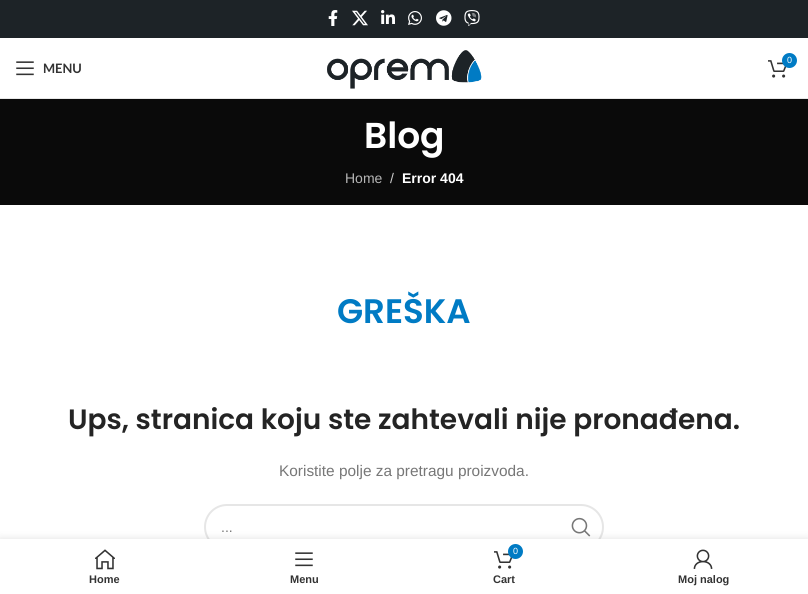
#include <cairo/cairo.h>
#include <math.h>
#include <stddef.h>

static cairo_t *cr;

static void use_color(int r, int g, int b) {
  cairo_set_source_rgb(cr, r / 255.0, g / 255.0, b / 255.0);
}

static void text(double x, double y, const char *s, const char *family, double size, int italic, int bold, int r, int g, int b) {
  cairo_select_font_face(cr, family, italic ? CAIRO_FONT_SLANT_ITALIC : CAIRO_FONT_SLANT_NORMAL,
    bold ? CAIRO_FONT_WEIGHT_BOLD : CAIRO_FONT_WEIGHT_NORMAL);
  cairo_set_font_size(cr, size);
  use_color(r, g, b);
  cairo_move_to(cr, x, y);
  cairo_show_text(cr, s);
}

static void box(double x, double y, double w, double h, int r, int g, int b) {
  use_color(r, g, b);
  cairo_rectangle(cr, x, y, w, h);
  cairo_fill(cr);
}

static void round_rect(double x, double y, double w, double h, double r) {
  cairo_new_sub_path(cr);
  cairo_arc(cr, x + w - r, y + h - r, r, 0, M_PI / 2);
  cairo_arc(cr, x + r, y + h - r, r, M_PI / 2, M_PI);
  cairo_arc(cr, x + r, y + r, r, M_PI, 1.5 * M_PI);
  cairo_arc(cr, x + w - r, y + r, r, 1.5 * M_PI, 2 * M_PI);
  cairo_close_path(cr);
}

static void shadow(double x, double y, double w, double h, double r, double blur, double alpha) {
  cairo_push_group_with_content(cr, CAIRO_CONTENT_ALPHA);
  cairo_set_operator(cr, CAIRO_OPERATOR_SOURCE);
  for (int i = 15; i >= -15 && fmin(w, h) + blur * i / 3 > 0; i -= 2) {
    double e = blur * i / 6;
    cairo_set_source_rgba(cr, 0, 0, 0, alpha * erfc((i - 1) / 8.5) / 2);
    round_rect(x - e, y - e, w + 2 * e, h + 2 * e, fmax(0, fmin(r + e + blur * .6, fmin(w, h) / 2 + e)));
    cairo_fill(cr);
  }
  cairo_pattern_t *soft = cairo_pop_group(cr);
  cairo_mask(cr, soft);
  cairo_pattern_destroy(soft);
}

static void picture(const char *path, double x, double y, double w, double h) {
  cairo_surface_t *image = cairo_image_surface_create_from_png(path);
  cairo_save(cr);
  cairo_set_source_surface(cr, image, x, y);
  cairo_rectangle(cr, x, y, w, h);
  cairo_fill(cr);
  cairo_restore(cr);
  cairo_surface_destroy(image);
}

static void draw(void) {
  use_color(255, 255, 255);
  cairo_paint(cr);
  box(0, 0, 808, 38, 29, 35, 39);
  picture("img_01.png", 328, 10, 10, 16);
  picture("img_02.png", 352, 10, 16, 16);
  picture("img_03.png", 381, 10, 14, 14);
  picture("img_04.png", 408, 11, 14, 14);
  picture("img_05.png", 436, 10, 16, 16);
  picture("img_06.png", 464, 10, 16, 16);
  box(0, 98, 808, 1, 232, 232, 232);
  picture("img_07.png", 327, 50, 155, 39);
  picture("img_08.png", 768, 60, 19, 18);
  use_color(0, 123, 196);
  cairo_arc(cr, 789.5, 60.5, 7.5, 0, 2 * M_PI);
  cairo_fill(cr);
  picture("img_09.png", 16, 61, 18, 15);
  box(0, 99, 808, 106, 10, 10, 10);
  round_rect(205, 505, 398, 44, 22);
  use_color(230, 230, 230);
  cairo_stroke(cr);
  picture("img_10.png", 571, 517, 20, 20);
  use_color(0, 0, 0);
  shadow(0, 539, 808, 55, 0, 4.5, 0.12);
  box(0, 539, 808, 55, 255, 255, 255);
  picture("img_11.png", 95, 549, 20, 21);
  picture("img_09.png", 295, 552, 18, 15);
  picture("img_08.png", 494, 551, 19, 18);
  use_color(0, 123, 196);
  cairo_arc(cr, 515.5, 551.5, 7.5, 0, 2 * M_PI);
  cairo_fill(cr);
  picture("img_12.png", 693, 549, 20, 20);
  text(787, 63, "0", "Liberation Sans", 9, 0, 0, 255, 255, 255);
  text(43, 73, "MENU", "Lato", 13, 0, 1, 51, 51, 51);
  text(364, 148, "Blog", "Poppins SemiBold", 36, 0, 0, 255, 255, 255);
  text(345, 183, "Home", "Liberation Sans", 14, 0, 0, 182, 182, 182);
  text(390, 183, "/", "Liberation Sans", 14, 0, 0, 206, 206, 206);
  text(402, 183, "Error 404", "Liberation Sans", 14, 0, 1, 255, 255, 255);
  text(337, 323, "GREŠKA", "Poppins SemiBold", 34, 0, 0, 0, 123, 196);
  text(68, 429, "Ups, stranica koju ste zahtevali nije pronađena.", "Poppins SemiBold", 28, 0, 0, 36, 36, 36);
  text(279, 476, "Koristite polje za pretragu proizvoda.", "Liberation Sans", 15.4, 0, 0, 119, 119, 119);
  text(221, 532, "...", "Liberation Sans", 14, 0, 0, 119, 119, 119);
  text(89, 583, "Home", "Liberation Sans", 11, 0, 1, 51, 51, 51);
  text(290, 583, "Menu", "Liberation Sans", 11, 0, 1, 51, 51, 51);
  text(513, 554, "0", "Liberation Sans", 9, 0, 0, 255, 255, 255);
  text(493, 583, "Cart", "Liberation Sans", 11, 0, 1, 51, 51, 51);
  text(678, 583, "Moj nalog", "Liberation Sans", 11, 0, 1, 51, 51, 51);
}

int main(void) {
  cairo_surface_t *surface = cairo_image_surface_create(CAIRO_FORMAT_RGB24, 808, 594);
  cr = cairo_create(surface);
  cairo_font_options_t *options = cairo_font_options_create();
  cairo_font_options_set_hint_metrics(options, CAIRO_HINT_METRICS_OFF);
  cairo_font_options_set_hint_style(options, CAIRO_HINT_STYLE_NONE);
  cairo_set_font_options(cr, options);
  cairo_set_miter_limit(cr, 4);
  draw();
  cairo_surface_write_to_png(surface, "out.png");
  cairo_font_options_destroy(options);
  cairo_destroy(cr);
  cairo_surface_destroy(surface);
  return 0;
}
